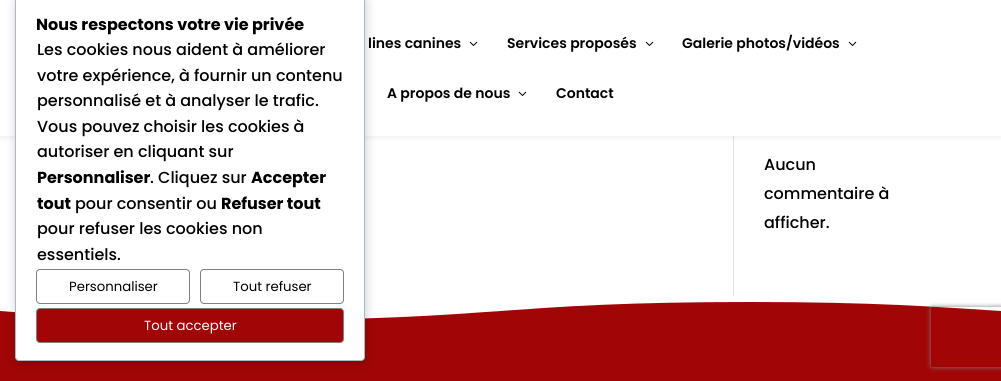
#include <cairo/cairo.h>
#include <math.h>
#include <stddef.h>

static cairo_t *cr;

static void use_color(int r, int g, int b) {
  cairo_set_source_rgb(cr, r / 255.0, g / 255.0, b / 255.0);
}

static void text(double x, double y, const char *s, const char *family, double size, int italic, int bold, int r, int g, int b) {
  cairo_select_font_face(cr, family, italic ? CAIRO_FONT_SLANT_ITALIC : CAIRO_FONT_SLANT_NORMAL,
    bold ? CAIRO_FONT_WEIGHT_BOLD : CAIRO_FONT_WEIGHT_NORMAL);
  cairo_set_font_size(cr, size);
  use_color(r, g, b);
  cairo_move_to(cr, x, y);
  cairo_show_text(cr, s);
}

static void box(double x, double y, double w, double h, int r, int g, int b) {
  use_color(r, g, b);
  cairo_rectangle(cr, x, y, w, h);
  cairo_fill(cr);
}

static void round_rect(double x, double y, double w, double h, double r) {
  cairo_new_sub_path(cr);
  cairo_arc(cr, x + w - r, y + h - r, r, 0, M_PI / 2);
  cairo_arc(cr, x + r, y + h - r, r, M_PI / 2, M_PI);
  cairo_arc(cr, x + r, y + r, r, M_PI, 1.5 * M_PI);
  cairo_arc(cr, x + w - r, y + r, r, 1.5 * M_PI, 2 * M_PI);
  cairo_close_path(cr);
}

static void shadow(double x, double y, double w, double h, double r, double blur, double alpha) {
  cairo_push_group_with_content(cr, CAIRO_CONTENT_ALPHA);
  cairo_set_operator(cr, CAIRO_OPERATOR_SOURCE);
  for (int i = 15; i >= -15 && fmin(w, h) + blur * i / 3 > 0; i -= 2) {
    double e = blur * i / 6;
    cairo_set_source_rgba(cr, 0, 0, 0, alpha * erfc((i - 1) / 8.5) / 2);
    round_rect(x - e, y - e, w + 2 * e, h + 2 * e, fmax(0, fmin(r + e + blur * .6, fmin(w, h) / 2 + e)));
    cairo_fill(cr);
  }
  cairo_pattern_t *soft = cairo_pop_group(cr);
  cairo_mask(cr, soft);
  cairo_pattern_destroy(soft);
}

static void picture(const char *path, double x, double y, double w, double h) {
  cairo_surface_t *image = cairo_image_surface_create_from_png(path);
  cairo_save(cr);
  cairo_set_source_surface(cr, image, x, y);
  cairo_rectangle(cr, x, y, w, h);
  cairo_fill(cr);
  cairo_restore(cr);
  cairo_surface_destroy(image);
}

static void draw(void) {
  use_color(255, 255, 255);
  cairo_paint(cr);
  box(733, 136, 1, 160, 226, 226, 226);
  use_color(0, 0, 0);
  shadow(0, 0, 1001, 136, 0, 3.5, 0.1);
  box(0, 0, 1001, 136, 255, 255, 255);
  box(0, 302, 1001, 79, 161, 5, 5);
  use_color(255, 255, 255);
  cairo_new_path(cr);
  cairo_move_to(cr, 751, 302);
  cairo_curve_to(cr, 876, 302, 938, 307, 1001, 311);
  cairo_line_to(cr, 1001, 296);
  cairo_line_to(cr, 0, 296);
  cairo_line_to(cr, 0, 311);
  cairo_curve_to(cr, 63, 316, 125, 320, 250, 320);
  cairo_curve_to(cr, 500, 320, 500, 302, 751, 302);
  cairo_close_path(cr);
  cairo_fill(cr);
  use_color(0, 0, 0);
  shadow(16, -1, 350, 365, 4, 5, 0.2);
  use_color(255, 255, 255);
  round_rect(15.5, -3.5, 349, 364, 3.5);
  cairo_fill_preserve(cr);
  use_color(171, 184, 195);
  cairo_set_line_width(cr, 1);
  cairo_stroke(cr);
  round_rect(36.5, 269.5, 153, 34, 3.5);
  use_color(128, 128, 128);
  cairo_stroke(cr);
  round_rect(200.5, 269.5, 143, 34, 3.5);
  cairo_stroke(cr);
  use_color(161, 5, 5);
  round_rect(36.5, 308.5, 307, 34, 3.5);
  cairo_fill_preserve(cr);
  use_color(128, 128, 128);
  cairo_stroke(cr);
  picture("img_01.png", 469, 41, 9, 5);
  picture("img_01.png", 645, 41, 9, 5);
  picture("img_01.png", 848, 41, 9, 5);
  picture("img_01.png", 518, 91, 9, 5);
  cairo_save(cr);
  cairo_set_fill_rule(cr, CAIRO_FILL_RULE_EVEN_ODD);
  cairo_new_path(cr);
  cairo_move_to(cr, 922, 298);
  cairo_line_to(cr, 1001, 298);
  cairo_line_to(cr, 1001, 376);
  cairo_line_to(cr, 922, 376);
  cairo_close_path(cr);
  cairo_move_to(cr, 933, 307);
  cairo_line_to(cr, 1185, 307);
  cairo_curve_to(cr, 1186, 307, 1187, 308, 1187, 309);
  cairo_line_to(cr, 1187, 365);
  cairo_curve_to(cr, 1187, 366, 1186, 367, 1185, 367);
  cairo_line_to(cr, 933, 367);
  cairo_curve_to(cr, 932, 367, 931, 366, 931, 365);
  cairo_line_to(cr, 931, 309);
  cairo_curve_to(cr, 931, 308, 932, 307, 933, 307);
  cairo_close_path(cr);
  cairo_clip(cr);
  use_color(128, 128, 128);
  shadow(931, 307, 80, 60, 2, 2.5, 1);
  cairo_restore(cr);
  text(36, 30, "Nous respectons votre vie privée", "Poppins", 16, 0, 1, 0, 0, 0);
  text(37, 55, "Les cookies nous aident à améliorer", "Poppins Medium", 16, 0, 0, 0, 0, 0);
  text(37, 81, "votre expérience, à fournir un contenu", "Poppins Medium", 16, 0, 0, 0, 0, 0);
  text(37, 106, "personnalisé et à analyser le trafic.", "Poppins Medium", 16, 0, 0, 0, 0, 0);
  text(37, 132, "Vous pouvez choisir les cookies à", "Poppins Medium", 16, 0, 0, 0, 0, 0);
  text(37, 157, "autoriser en cliquant sur", "Poppins Medium", 16, 0, 0, 0, 0, 0);
  text(37, 183, "Personnaliser", "Poppins", 16, 0, 1, 0, 0, 0);
  text(150, 183, ". Cliquez sur", "Poppins Medium", 16, 0, 0, 0, 0, 0);
  text(251, 183, "Accepter", "Poppins", 16, 0, 1, 0, 0, 0);
  text(37, 209, "tout", "Poppins", 16, 0, 1, 0, 0, 0);
  text(75, 209, "pour consentir ou", "Poppins Medium", 16, 0, 0, 0, 0, 0);
  text(221, 209, "Refuser tout", "Poppins", 16, 0, 1, 0, 0, 0);
  text(37, 234, "pour refuser les cookies non", "Poppins Medium", 16, 0, 0, 0, 0, 0);
  text(37, 260, "essentiels.", "Poppins Medium", 16, 0, 0, 0, 0, 0);
  text(69, 291, "Personnaliser", "Poppins", 13.25, 0, 0, 0, 0, 0);
  text(233, 291, "Tout refuser", "Poppins", 13.25, 0, 0, 0, 0, 0);
  text(144, 330, "Tout accepter", "Poppins", 13.25, 0, 0, 255, 255, 255);
  text(368, 48, "lines canines", "Poppins SemiBold", 14, 0, 0, 0, 0, 0);
  text(507, 48, "Services proposés", "Poppins SemiBold", 14, 0, 0, 0, 0, 0);
  text(682, 48, "Galerie photos/vidéos", "Poppins SemiBold", 14, 0, 0, 0, 0, 0);
  text(387, 98, "A propos de nous", "Poppins SemiBold", 14, 0, 0, 0, 0, 0);
  text(556, 98, "Contact", "Poppins SemiBold", 14, 0, 0, 0, 0, 0);
  text(764, 170, "Aucun", "Poppins Medium", 16, 0, 0, 0, 0, 0);
  text(764, 199, "commentaire à", "Poppins Medium", 16, 0, 0, 0, 0, 0);
  text(764, 228, "afficher.", "Poppins Medium", 16, 0, 0, 0, 0, 0);
}

int main(void) {
  cairo_surface_t *surface = cairo_image_surface_create(CAIRO_FORMAT_RGB24, 1001, 381);
  cr = cairo_create(surface);
  cairo_font_options_t *options = cairo_font_options_create();
  cairo_font_options_set_hint_metrics(options, CAIRO_HINT_METRICS_OFF);
  cairo_font_options_set_hint_style(options, CAIRO_HINT_STYLE_NONE);
  cairo_set_font_options(cr, options);
  cairo_set_miter_limit(cr, 4);
  draw();
  cairo_surface_write_to_png(surface, "out.png");
  cairo_font_options_destroy(options);
  cairo_destroy(cr);
  cairo_surface_destroy(surface);
  return 0;
}
